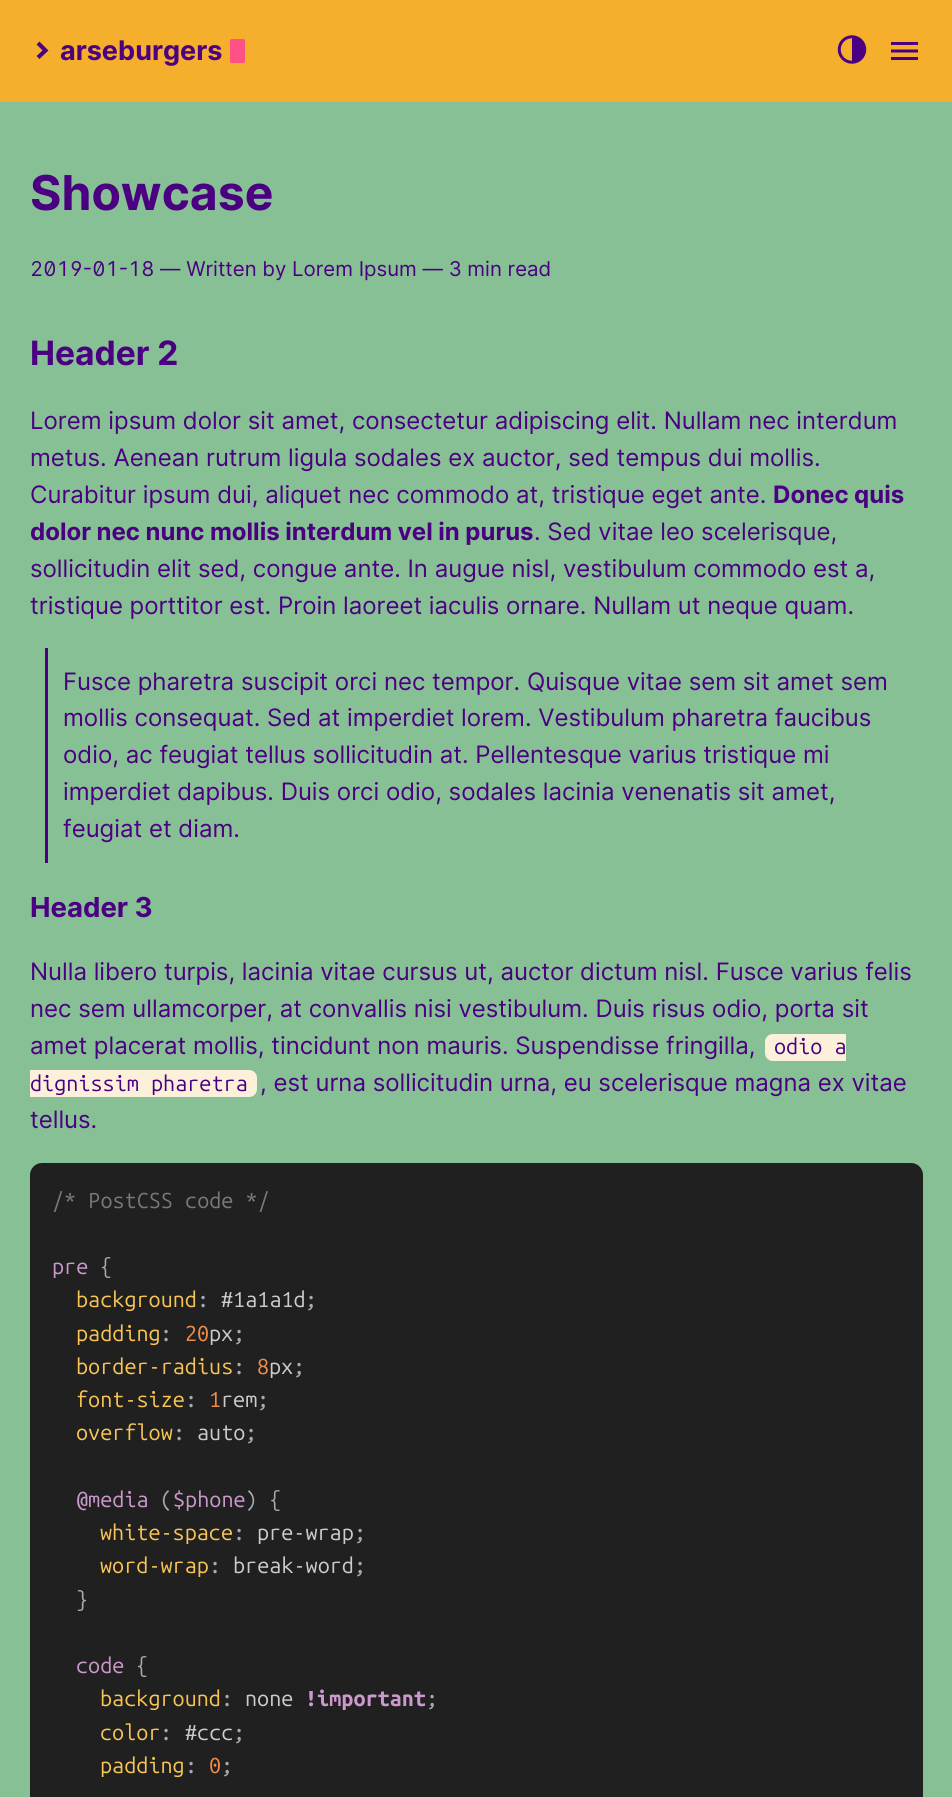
#include <cairo/cairo.h>
#include <math.h>
#include <stddef.h>

static cairo_t *cr;

static void use_color(int r, int g, int b) {
  cairo_set_source_rgb(cr, r / 255.0, g / 255.0, b / 255.0);
}

static void text(double x, double y, const char *s, const char *family, double size, int italic, int bold, int r, int g, int b) {
  cairo_select_font_face(cr, family, italic ? CAIRO_FONT_SLANT_ITALIC : CAIRO_FONT_SLANT_NORMAL,
    bold ? CAIRO_FONT_WEIGHT_BOLD : CAIRO_FONT_WEIGHT_NORMAL);
  cairo_set_font_size(cr, size);
  use_color(r, g, b);
  cairo_move_to(cr, x, y);
  cairo_show_text(cr, s);
}

static void box(double x, double y, double w, double h, int r, int g, int b) {
  use_color(r, g, b);
  cairo_rectangle(cr, x, y, w, h);
  cairo_fill(cr);
}

static void round_rect(double x, double y, double w, double h, double r) {
  cairo_new_sub_path(cr);
  cairo_arc(cr, x + w - r, y + h - r, r, 0, M_PI / 2);
  cairo_arc(cr, x + r, y + h - r, r, M_PI / 2, M_PI);
  cairo_arc(cr, x + r, y + r, r, M_PI, 1.5 * M_PI);
  cairo_arc(cr, x + w - r, y + r, r, 1.5 * M_PI, 2 * M_PI);
  cairo_close_path(cr);
}

static void picture(const char *path, double x, double y, double w, double h) {
  cairo_surface_t *image = cairo_image_surface_create_from_png(path);
  cairo_save(cr);
  cairo_set_source_surface(cr, image, x, y);
  cairo_rectangle(cr, x, y, w, h);
  cairo_fill(cr);
  cairo_restore(cr);
  cairo_surface_destroy(image);
}

static void draw(void) {
  use_color(135, 192, 148);
  cairo_paint(cr);
  box(0, 0, 952, 102, 246, 174, 45);
  cairo_new_path(cr);
  cairo_move_to(cr, 38, 43);
  cairo_line_to(cr, 45.5, 50.5);
  cairo_line_to(cr, 38, 57.5);
  use_color(75, 0, 130);
  cairo_set_line_width(cr, 4.1);
  cairo_stroke(cr);
  use_color(254, 81, 134);
  round_rect(230, 39, 15, 24, 1.5);
  cairo_fill(cr);
  picture("img_01.png", 837, 35, 30, 29);
  picture("img_02.png", 891, 42, 27, 18);
  box(45, 648, 3, 215, 75, 0, 130);
  use_color(251, 240, 218);
  cairo_new_path(cr);
  cairo_move_to(cr, 773, 1034);
  cairo_line_to(cr, 846, 1034);
  cairo_line_to(cr, 846, 1061);
  cairo_line_to(cr, 773, 1061);
  cairo_curve_to(cr, 768.5, 1061, 765, 1057.5, 765, 1053);
  cairo_line_to(cr, 765, 1042);
  cairo_curve_to(cr, 765, 1037.5, 768.5, 1034, 773, 1034);
  cairo_close_path(cr);
  cairo_fill(cr);
  cairo_new_path(cr);
  cairo_move_to(cr, 30, 1070);
  cairo_line_to(cr, 249, 1070);
  cairo_curve_to(cr, 253.5, 1070, 257, 1073.5, 257, 1078);
  cairo_line_to(cr, 257, 1089);
  cairo_curve_to(cr, 257, 1093.5, 253.5, 1097, 249, 1097);
  cairo_line_to(cr, 30, 1097);
  cairo_close_path(cr);
  cairo_fill(cr);
  use_color(33, 32, 32);
  round_rect(30, 1163, 893, 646, 12);
  cairo_fill(cr);
  text(60, 60, "arseburgers", "Inter", 27, 0, 1, 75, 0, 130);
  text(30, 210, "Showcase", "Inter", 48, 0, 1, 75, 0, 130);
  text(30, 276, "2019-01-18", "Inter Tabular", 20.4, 0, 0, 75, 0, 130);
  text(160, 276, "— Written by Lorem Ipsum — 3 min read", "Inter", 20.4, 0, 0, 75, 0, 130);
  text(30, 365, "Header 2", "Inter", 33.5, 0, 1, 75, 0, 130);
  text(30, 429, "Lorem ipsum dolor sit amet, consectetur adipiscing elit. Nullam nec interdum", "Inter", 24, 0, 0, 75, 0, 130);
  text(30, 466, "metus. Aenean rutrum ligula sodales ex auctor, sed tempus dui mollis.", "Inter", 24, 0, 0, 75, 0, 130);
  text(30, 503, "Curabitur ipsum dui, aliquet nec commodo at, tristique eget ante.", "Inter", 24, 0, 0, 75, 0, 130);
  text(773, 503, "Donec quis", "Inter", 24, 0, 1, 75, 0, 130);
  text(30, 540, "dolor nec nunc mollis interdum vel in purus", "Inter", 24, 0, 1, 75, 0, 130);
  text(534, 540, ". Sed vitae leo scelerisque,", "Inter", 24, 0, 0, 75, 0, 130);
  text(30, 577, "sollicitudin elit sed, congue ante. In augue nisl, vestibulum commodo est a,", "Inter", 24, 0, 0, 75, 0, 130);
  text(30, 614, "tristique porttitor est. Proin laoreet iaculis ornare. Nullam ut neque quam.", "Inter", 24, 0, 0, 75, 0, 130);
  text(63, 690, "Fusce pharetra suscipit orci nec tempor. Quisque vitae sem sit amet sem", "Inter", 24, 0, 0, 75, 0, 130);
  text(63, 726, "mollis consequat. Sed at imperdiet lorem. Vestibulum pharetra faucibus", "Inter", 24, 0, 0, 75, 0, 130);
  text(63, 763, "odio, ac feugiat tellus sollicitudin at. Pellentesque varius tristique mi", "Inter", 24, 0, 0, 75, 0, 130);
  text(63, 800, "imperdiet dapibus. Duis orci odio, sodales lacinia venenatis sit amet,", "Inter", 24, 0, 0, 75, 0, 130);
  text(63, 837, "feugiat et diam.", "Inter", 24, 0, 0, 75, 0, 130);
  text(30, 917, "Header 3", "Inter", 27.5, 0, 1, 75, 0, 130);
  text(30, 980, "Nulla libero turpis, lacinia vitae cursus ut, auctor dictum nisl. Fusce varius felis", "Inter", 24, 0, 0, 75, 0, 130);
  text(30, 1017, "nec sem ullamcorper, at convallis nisi vestibulum. Duis risus odio, porta sit", "Inter", 24, 0, 0, 75, 0, 130);
  text(30, 1054, "amet placerat mollis, tincidunt non mauris. Suspendisse fringilla,", "Inter", 24, 0, 0, 75, 0, 130);
  text(774, 1054, "odio a", "Ubuntu Mono", 21.6, 0, 0, 75, 0, 130);
  text(30, 1091, "dignissim pharetra", "Ubuntu Mono", 21.6, 0, 0, 75, 0, 130);
  text(260, 1091, ", est urna sollicitudin urna, eu scelerisque magna ex vitae", "Inter", 24, 0, 0, 75, 0, 130);
  text(30, 1128, "tellus.", "Inter", 24, 0, 0, 75, 0, 130);
  text(52, 1208, "/* PostCSS code */", "Ubuntu Mono", 21.6, 0, 0, 122, 121, 121);
  text(52, 1274, "pre", "Ubuntu Mono", 21.6, 0, 0, 204, 153, 205);
  text(100, 1274, "{", "Ubuntu Mono", 21.6, 0, 0, 169, 169, 179);
  text(76, 1307, "background", "Ubuntu Mono", 21.6, 0, 0, 248, 197, 85);
  text(197, 1307, ":", "Ubuntu Mono", 21.6, 0, 0, 169, 169, 179);
  text(221, 1307, "#1a1a1d", "Ubuntu Mono", 21.6, 0, 0, 204, 204, 204);
  text(305, 1307, ";", "Ubuntu Mono", 21.6, 0, 0, 169, 169, 179);
  text(76, 1341, "padding", "Ubuntu Mono", 21.6, 0, 0, 248, 197, 85);
  text(160, 1341, ":", "Ubuntu Mono", 21.6, 0, 0, 169, 169, 179);
  text(185, 1341, "20", "Ubuntu Mono", 21.6, 0, 0, 240, 141, 73);
  text(209, 1341, "px", "Ubuntu Mono", 21.6, 0, 0, 204, 204, 204);
  text(233, 1341, ";", "Ubuntu Mono", 21.6, 0, 0, 169, 169, 179);
  text(76, 1374, "border-radius", "Ubuntu Mono", 21.6, 0, 0, 248, 197, 85);
  text(233, 1374, ":", "Ubuntu Mono", 21.6, 0, 0, 169, 169, 179);
  text(257, 1374, "8", "Ubuntu Mono", 21.6, 0, 0, 240, 141, 73);
  text(269, 1374, "px", "Ubuntu Mono", 21.6, 0, 0, 204, 204, 204);
  text(293, 1374, ";", "Ubuntu Mono", 21.6, 0, 0, 169, 169, 179);
  text(76, 1407, "font-size", "Ubuntu Mono", 21.6, 0, 0, 248, 197, 85);
  text(185, 1407, ":", "Ubuntu Mono", 21.6, 0, 0, 169, 169, 179);
  text(209, 1407, "1", "Ubuntu Mono", 21.6, 0, 0, 240, 141, 73);
  text(221, 1407, "rem", "Ubuntu Mono", 21.6, 0, 0, 204, 204, 204);
  text(257, 1407, ";", "Ubuntu Mono", 21.6, 0, 0, 169, 169, 179);
  text(76, 1440, "overflow", "Ubuntu Mono", 21.6, 0, 0, 248, 197, 85);
  text(173, 1440, ":", "Ubuntu Mono", 21.6, 0, 0, 169, 169, 179);
  text(197, 1440, "auto", "Ubuntu Mono", 21.6, 0, 0, 204, 204, 204);
  text(245, 1440, ";", "Ubuntu Mono", 21.6, 0, 0, 169, 169, 179);
  text(76, 1507, "@media", "Ubuntu Mono", 21.6, 0, 0, 204, 153, 205);
  text(160, 1507, "(", "Ubuntu Mono", 21.6, 0, 0, 169, 169, 179);
  text(173, 1507, "$phone", "Ubuntu Mono", 21.6, 0, 0, 204, 153, 205);
  text(245, 1507, ") {", "Ubuntu Mono", 21.6, 0, 0, 169, 169, 179);
  text(100, 1540, "white-space", "Ubuntu Mono", 21.6, 0, 0, 248, 197, 85);
  text(233, 1540, ":", "Ubuntu Mono", 21.6, 0, 0, 169, 169, 179);
  text(257, 1540, "pre-wrap", "Ubuntu Mono", 21.6, 0, 0, 204, 204, 204);
  text(354, 1540, ";", "Ubuntu Mono", 21.6, 0, 0, 169, 169, 179);
  text(100, 1573, "word-wrap", "Ubuntu Mono", 21.6, 0, 0, 248, 197, 85);
  text(209, 1573, ":", "Ubuntu Mono", 21.6, 0, 0, 169, 169, 179);
  text(233, 1573, "break-word", "Ubuntu Mono", 21.6, 0, 0, 204, 204, 204);
  text(354, 1573, ";", "Ubuntu Mono", 21.6, 0, 0, 169, 169, 179);
  text(76, 1607, "}", "Ubuntu Mono", 21.6, 0, 0, 169, 169, 179);
  text(76, 1673, "code", "Ubuntu Mono", 21.6, 0, 0, 204, 153, 205);
  text(136, 1673, "{", "Ubuntu Mono", 21.6, 0, 0, 169, 169, 179);
  text(100, 1706, "background", "Ubuntu Mono", 21.6, 0, 0, 248, 197, 85);
  text(221, 1706, ":", "Ubuntu Mono", 21.6, 0, 0, 169, 169, 179);
  text(245, 1706, "none", "Ubuntu Mono", 21.6, 0, 0, 204, 204, 204);
  text(305, 1706, "!important", "Ubuntu Mono", 21.6, 0, 1, 204, 153, 205);
  text(426, 1706, ";", "Ubuntu Mono", 21.6, 0, 0, 169, 169, 179);
  text(100, 1740, "color", "Ubuntu Mono", 21.6, 0, 0, 248, 197, 85);
  text(160, 1740, ":", "Ubuntu Mono", 21.6, 0, 0, 169, 169, 179);
  text(185, 1740, "#ccc", "Ubuntu Mono", 21.6, 0, 0, 204, 204, 204);
  text(233, 1740, ";", "Ubuntu Mono", 21.6, 0, 0, 169, 169, 179);
  text(100, 1773, "padding", "Ubuntu Mono", 21.6, 0, 0, 248, 197, 85);
  text(185, 1773, ":", "Ubuntu Mono", 21.6, 0, 0, 169, 169, 179);
  text(209, 1773, "0", "Ubuntu Mono", 21.6, 0, 0, 240, 141, 73);
  text(221, 1773, ";", "Ubuntu Mono", 21.6, 0, 0, 169, 169, 179);
}

int main(void) {
  cairo_surface_t *surface = cairo_image_surface_create(CAIRO_FORMAT_RGB24, 952, 1797);
  cr = cairo_create(surface);
  cairo_font_options_t *options = cairo_font_options_create();
  cairo_font_options_set_hint_metrics(options, CAIRO_HINT_METRICS_OFF);
  cairo_font_options_set_hint_style(options, CAIRO_HINT_STYLE_NONE);
  cairo_set_font_options(cr, options);
  cairo_set_miter_limit(cr, 4);
  draw();
  cairo_surface_write_to_png(surface, "out.png");
  cairo_font_options_destroy(options);
  cairo_destroy(cr);
  cairo_surface_destroy(surface);
  return 0;
}
